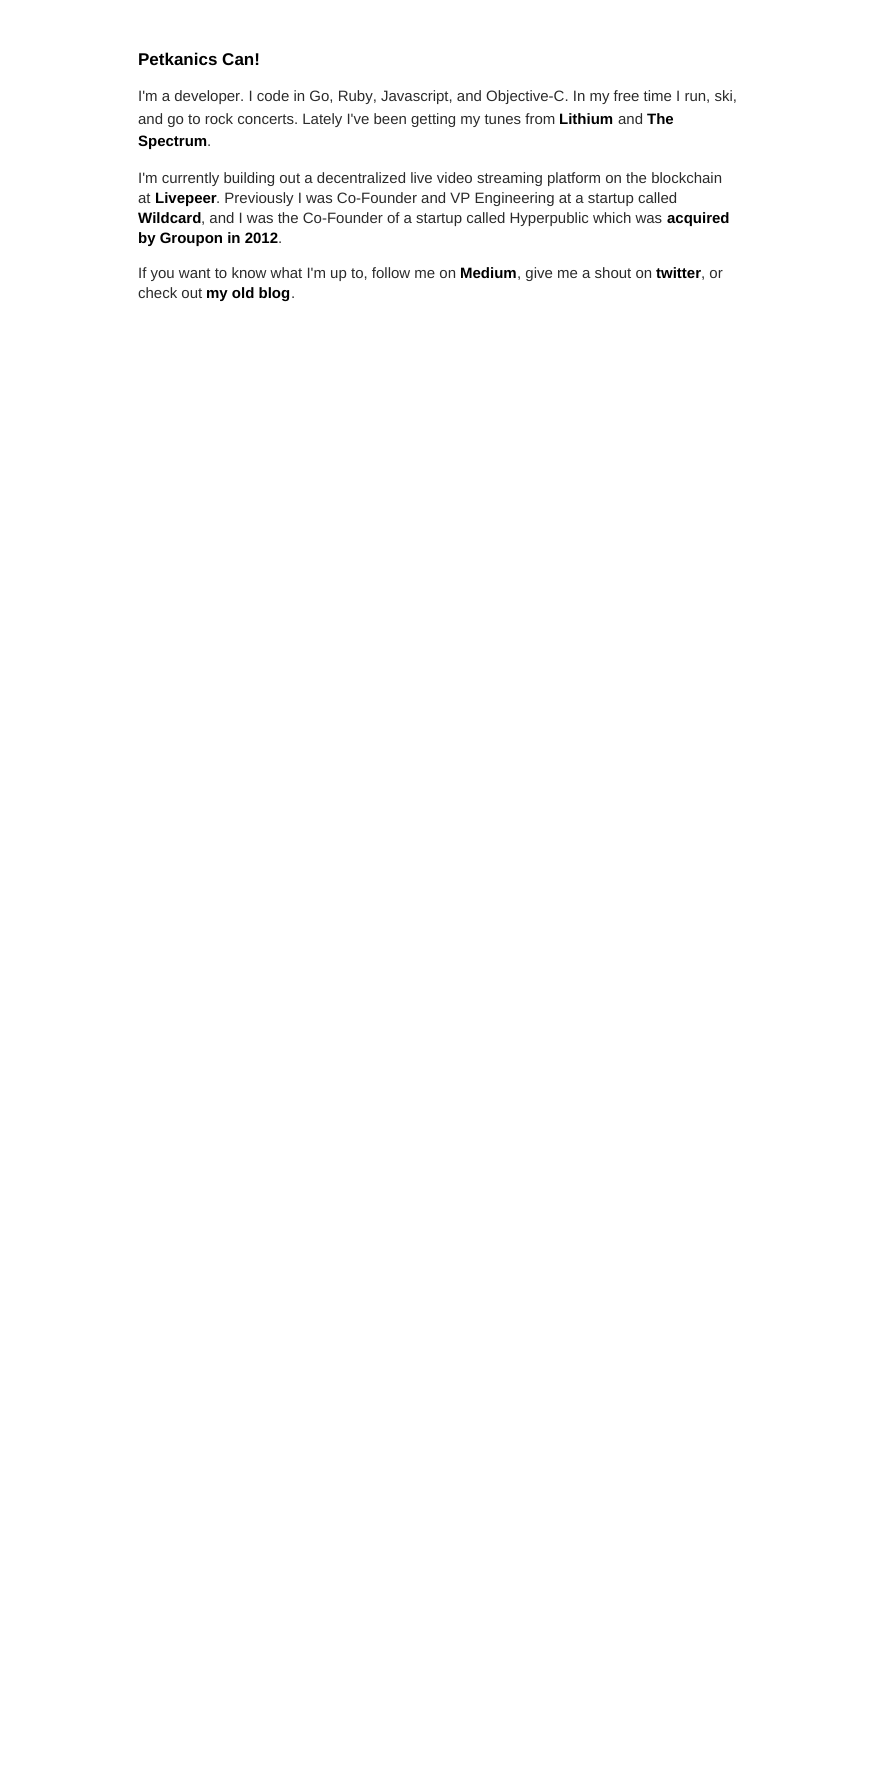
#include <cairo/cairo.h>
#include <math.h>
#include <stddef.h>

static cairo_t *cr;

static void use_color(int r, int g, int b) {
  cairo_set_source_rgb(cr, r / 255.0, g / 255.0, b / 255.0);
}

static void text(double x, double y, const char *s, const char *family, double size, int italic, int bold, int r, int g, int b) {
  cairo_select_font_face(cr, family, italic ? CAIRO_FONT_SLANT_ITALIC : CAIRO_FONT_SLANT_NORMAL,
    bold ? CAIRO_FONT_WEIGHT_BOLD : CAIRO_FONT_WEIGHT_NORMAL);
  cairo_set_font_size(cr, size);
  use_color(r, g, b);
  cairo_move_to(cr, x, y);
  cairo_show_text(cr, s);
}

static void draw(void) {
  use_color(255, 255, 255);
  cairo_paint(cr);
  text(138, 65, "Petkanics Can!", "Liberation Sans", 17, 0, 1, 0, 0, 0);
  text(138, 101, "I'm a developer. I code in Go, Ruby, Javascript, and Objective-C. In my free time I run, ski,", "Liberation Sans", 15, 0, 0, 43, 43, 43);
  text(138, 124, "and go to rock concerts. Lately I've been getting my tunes from", "Liberation Sans", 15, 0, 0, 43, 43, 43);
  text(559, 124, "Lithium", "Liberation Sans", 15, 0, 1, 0, 0, 0);
  text(618, 124, "and", "Liberation Sans", 15, 0, 0, 43, 43, 43);
  text(647, 124, "The", "Liberation Sans", 15, 0, 1, 0, 0, 0);
  text(138, 146, "Spectrum", "Liberation Sans", 15, 0, 1, 0, 0, 0);
  text(207, 146, ".", "Liberation Sans", 15, 0, 0, 43, 43, 43);
  text(138, 183, "I'm currently building out a decentralized live video streaming platform on the blockchain", "Liberation Sans", 15, 0, 0, 43, 43, 43);
  text(138, 203, "at", "Liberation Sans", 15, 0, 0, 43, 43, 43);
  text(155, 203, "Livepeer", "Liberation Sans", 15, 0, 1, 0, 0, 0);
  text(216, 203, ". Previously I was Co-Founder and VP Engineering at a startup called", "Liberation Sans", 15, 0, 0, 43, 43, 43);
  text(138, 223, "Wildcard", "Liberation Sans", 15, 0, 1, 0, 0, 0);
  text(201, 223, ", and I was the Co-Founder of a startup called Hyperpublic which was", "Liberation Sans", 15, 0, 0, 43, 43, 43);
  text(667, 223, "acquired", "Liberation Sans", 15, 0, 1, 0, 0, 0);
  text(138, 243, "by Groupon in 2012", "Liberation Sans", 15, 0, 1, 0, 0, 0);
  text(278, 243, ".", "Liberation Sans", 15, 0, 0, 43, 43, 43);
  text(138, 278, "If you want to know what I'm up to, follow me on", "Liberation Sans", 15, 0, 0, 43, 43, 43);
  text(460, 278, "Medium", "Liberation Sans", 15, 0, 1, 0, 0, 0);
  text(517, 278, ", give me a shout on", "Liberation Sans", 15, 0, 0, 43, 43, 43);
  text(656, 278, "twitter", "Liberation Sans", 15, 0, 1, 0, 0, 0);
  text(701, 278, ", or", "Liberation Sans", 15, 0, 0, 43, 43, 43);
  text(138, 298, "check out", "Liberation Sans", 15, 0, 0, 43, 43, 43);
  text(206, 298, "my old blog", "Liberation Sans", 15, 0, 1, 0, 0, 0);
  text(291, 298, ".", "Liberation Sans", 15, 0, 0, 43, 43, 43);
}

int main(void) {
  cairo_surface_t *surface = cairo_image_surface_create(CAIRO_FORMAT_RGB24, 876, 1785);
  cr = cairo_create(surface);
  cairo_font_options_t *options = cairo_font_options_create();
  cairo_font_options_set_hint_metrics(options, CAIRO_HINT_METRICS_OFF);
  cairo_font_options_set_hint_style(options, CAIRO_HINT_STYLE_NONE);
  cairo_set_font_options(cr, options);
  cairo_set_miter_limit(cr, 4);
  draw();
  cairo_surface_write_to_png(surface, "out.png");
  cairo_font_options_destroy(options);
  cairo_destroy(cr);
  cairo_surface_destroy(surface);
  return 0;
}
